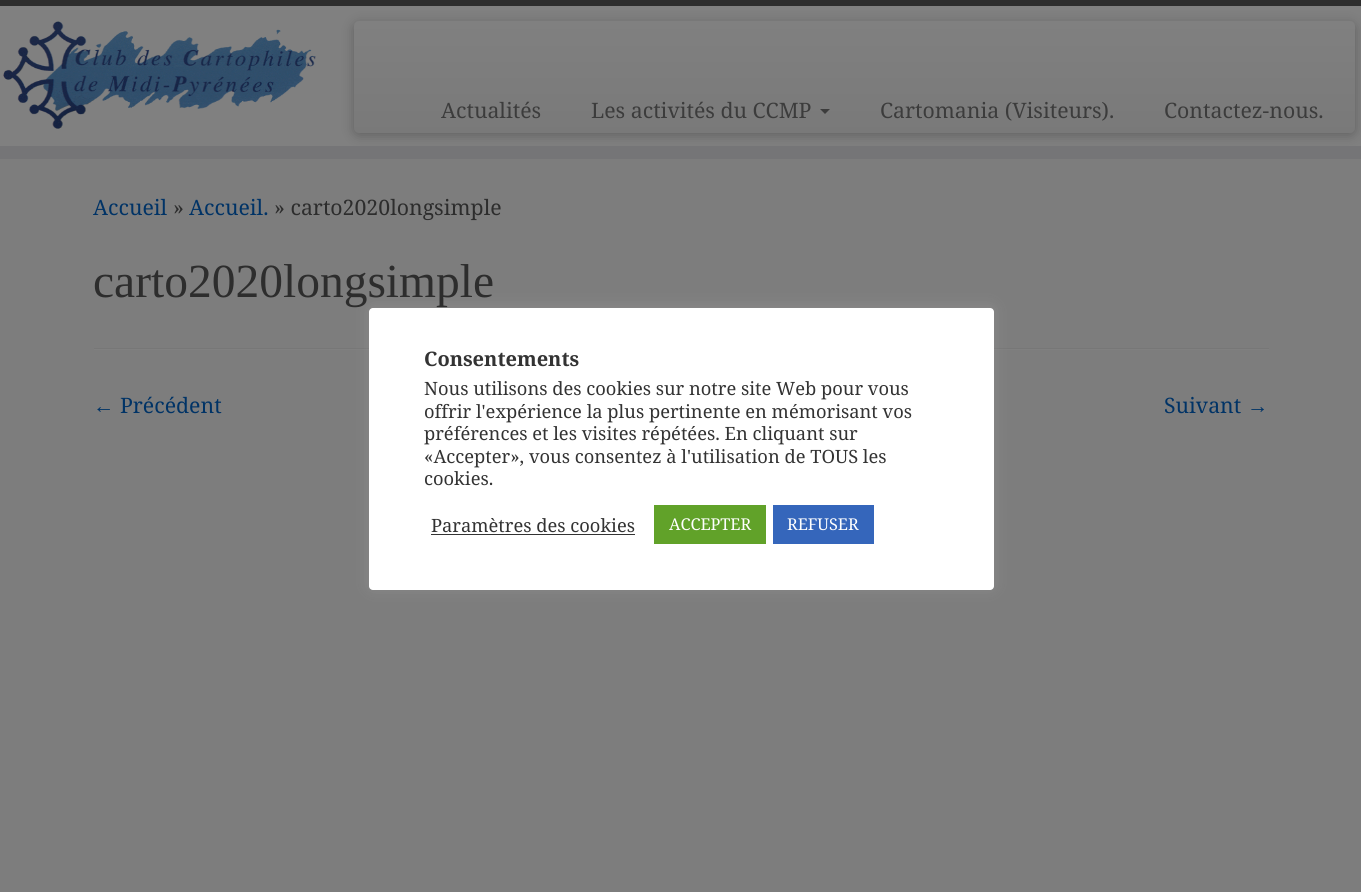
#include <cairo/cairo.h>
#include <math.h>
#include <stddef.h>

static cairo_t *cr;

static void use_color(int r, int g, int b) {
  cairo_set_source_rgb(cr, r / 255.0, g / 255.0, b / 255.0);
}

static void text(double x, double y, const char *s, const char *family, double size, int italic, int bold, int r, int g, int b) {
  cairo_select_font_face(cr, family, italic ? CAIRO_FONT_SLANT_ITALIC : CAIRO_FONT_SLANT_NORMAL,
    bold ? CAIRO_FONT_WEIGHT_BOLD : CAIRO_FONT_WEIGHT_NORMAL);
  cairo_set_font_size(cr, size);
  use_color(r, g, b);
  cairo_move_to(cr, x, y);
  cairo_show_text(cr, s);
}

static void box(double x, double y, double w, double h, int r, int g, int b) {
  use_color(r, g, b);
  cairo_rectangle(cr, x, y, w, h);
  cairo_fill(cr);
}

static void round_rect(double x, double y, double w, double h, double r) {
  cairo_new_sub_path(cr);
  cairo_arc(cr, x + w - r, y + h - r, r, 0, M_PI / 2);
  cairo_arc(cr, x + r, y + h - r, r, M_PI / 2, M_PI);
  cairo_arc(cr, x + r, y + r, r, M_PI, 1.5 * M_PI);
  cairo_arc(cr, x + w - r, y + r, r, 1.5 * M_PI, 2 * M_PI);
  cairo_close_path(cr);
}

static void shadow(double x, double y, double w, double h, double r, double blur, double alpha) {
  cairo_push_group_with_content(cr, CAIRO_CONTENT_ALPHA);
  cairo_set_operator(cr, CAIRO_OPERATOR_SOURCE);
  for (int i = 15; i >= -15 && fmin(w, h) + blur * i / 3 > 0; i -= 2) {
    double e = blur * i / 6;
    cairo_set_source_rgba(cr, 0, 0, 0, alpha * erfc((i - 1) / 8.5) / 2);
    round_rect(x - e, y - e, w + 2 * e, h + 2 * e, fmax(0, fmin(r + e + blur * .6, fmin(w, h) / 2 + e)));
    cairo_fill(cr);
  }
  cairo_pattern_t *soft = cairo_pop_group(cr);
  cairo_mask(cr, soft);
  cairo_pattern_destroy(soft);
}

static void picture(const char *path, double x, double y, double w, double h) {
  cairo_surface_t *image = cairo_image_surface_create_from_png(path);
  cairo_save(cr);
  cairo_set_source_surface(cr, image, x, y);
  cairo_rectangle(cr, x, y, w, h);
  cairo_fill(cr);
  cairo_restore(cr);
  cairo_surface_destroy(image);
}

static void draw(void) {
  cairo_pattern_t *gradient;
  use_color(125, 125, 125);
  cairo_paint(cr);
  box(0, 6, 1361, 140, 128, 128, 128);
  box(0, 0, 1361, 6, 45, 45, 45);
  box(0, 146, 1361, 13, 117, 117, 119);
  picture("img_01.png", 3, 21, 313, 108);
  use_color(0, 0, 0);
  shadow(354, 24, 1001, 111, 5, 6, 0.25);
  gradient = cairo_pattern_create_linear(854, 21, 854, 133);
  cairo_pattern_add_color_stop_rgba(gradient, 0, 0.502, 0.502, 0.502, 1);
  cairo_pattern_add_color_stop_rgba(gradient, 1, 0.475, 0.475, 0.475, 1);
  cairo_set_source(cr, gradient);
  cairo_pattern_destroy(gradient);
  round_rect(354, 21, 1001, 112, 5);
  cairo_fill(cr);
  use_color(60, 60, 60);
  cairo_new_path(cr);
  cairo_move_to(cr, 820, 109);
  cairo_line_to(cr, 830, 109);
  cairo_line_to(cr, 825, 114);
  cairo_close_path(cr);
  cairo_fill(cr);
  box(94, 348, 1175, 1, 119, 119, 119);
  box(94, 349, 1175, 1, 128, 128, 128);
  use_color(172, 171, 171);
  shadow(369, 306, 625, 283, 4, 6, 0.3);
  use_color(255, 255, 255);
  round_rect(369, 308, 625, 282, 4);
  cairo_fill(cr);
  box(431, 534, 204, 1, 51, 51, 51);
  box(654, 505, 112, 39, 97, 162, 41);
  box(773, 505, 101, 39, 53, 102, 187);
  text(441, 118, "Actualités", "Noto Serif", 21.25, 0, 0, 60, 60, 60);
  text(591, 118, "Les activités du CCMP", "Noto Serif", 21.25, 0, 0, 60, 60, 60);
  text(880, 118, "Cartomania (Visiteurs).", "Noto Serif", 21.25, 0, 0, 60, 60, 60);
  text(1164, 118, "Contactez-nous.", "Noto Serif", 21.25, 0, 0, 60, 60, 60);
  text(93, 215, "Accueil", "Noto Serif", 21.25, 0, 0, 0, 51, 102);
  text(173, 215, "»", "Noto Serif", 21.25, 0, 0, 45, 45, 45);
  text(189, 215, "Accueil.", "Noto Serif", 21.25, 0, 0, 0, 51, 102);
  text(274, 215, "» carto2020longsimple", "Noto Serif", 21.25, 0, 0, 45, 45, 45);
  text(93, 297, "carto2020longsimple", "Liberation Serif", 47.5, 0, 0, 45, 45, 45);
  text(93, 413, "←", "Liberation Serif", 21.25, 0, 0, 0, 51, 102);
  text(120, 413, "Précédent", "Noto Serif", 21.25, 0, 0, 0, 51, 102);
  text(1164, 413, "Suivant", "Noto Serif", 21.25, 0, 0, 0, 51, 102);
  text(1247, 413, "→", "Liberation Serif", 21.25, 0, 0, 0, 51, 102);
  text(424, 366, "Consentements", "Noto Serif", 20, 0, 1, 51, 51, 51);
  text(424, 395, "Nous utilisons des cookies sur notre site Web pour vous", "Noto Serif", 18.3, 0, 0, 51, 51, 51);
  text(424, 418, "offrir l'expérience la plus pertinente en mémorisant vos", "Noto Serif", 18.3, 0, 0, 51, 51, 51);
  text(424, 440, "préférences et les visites répétées. En cliquant sur", "Noto Serif", 18.3, 0, 0, 51, 51, 51);
  text(424, 463, "«Accepter», vous consentez à l'utilisation de TOUS les", "Noto Serif", 18.3, 0, 0, 51, 51, 51);
  text(424, 485, "cookies.", "Noto Serif", 18.3, 0, 0, 51, 51, 51);
  text(431, 532, "Paramètres des cookies", "Noto Serif", 18.3, 0, 0, 51, 51, 51);
  text(669, 530, "ACCEPTER", "Noto Serif", 16.25, 0, 0, 255, 255, 255);
  text(787, 530, "REFUSER", "Noto Serif", 16.25, 0, 0, 255, 255, 255);
}

int main(void) {
  cairo_surface_t *surface = cairo_image_surface_create(CAIRO_FORMAT_RGB24, 1361, 892);
  cr = cairo_create(surface);
  cairo_font_options_t *options = cairo_font_options_create();
  cairo_font_options_set_hint_metrics(options, CAIRO_HINT_METRICS_OFF);
  cairo_font_options_set_hint_style(options, CAIRO_HINT_STYLE_NONE);
  cairo_set_font_options(cr, options);
  cairo_set_miter_limit(cr, 4);
  draw();
  cairo_surface_write_to_png(surface, "out.png");
  cairo_font_options_destroy(options);
  cairo_destroy(cr);
  cairo_surface_destroy(surface);
  return 0;
}
